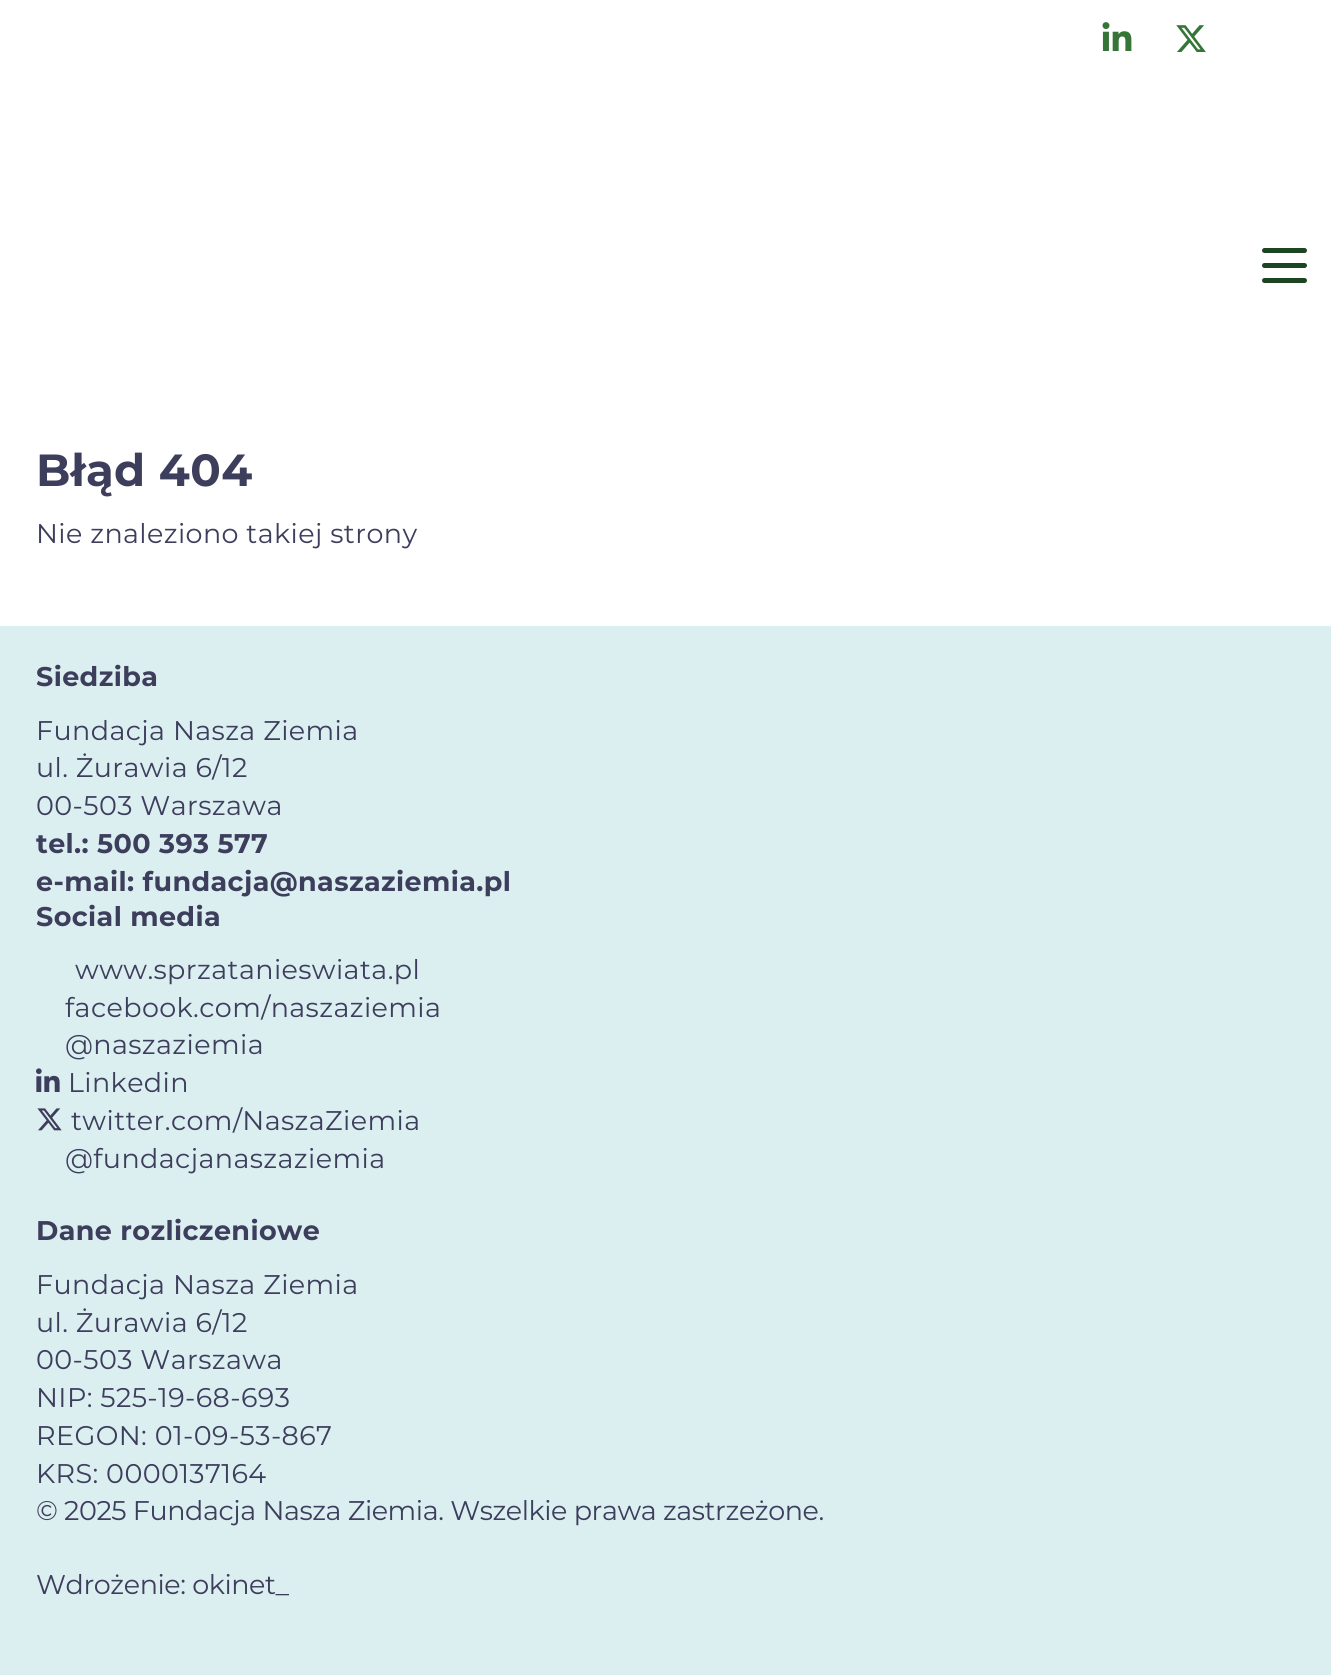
#include <cairo/cairo.h>
#include <math.h>
#include <stddef.h>

static cairo_t *cr;

static void use_color(int r, int g, int b) {
  cairo_set_source_rgb(cr, r / 255.0, g / 255.0, b / 255.0);
}

static void spaced_text(double x, double y, const char *s, double letter, double word) {
  cairo_move_to(cr, x, y);
  while (*s) {
    char ch[5] = {0};
    int n = 0;
    do ch[n++] = *s++; while ((*s & 0xC0) == 0x80);
    cairo_show_text(cr, ch);
    cairo_rel_move_to(cr, letter + word * (*ch == ' '), 0);
  }
}

static void box(double x, double y, double w, double h, int r, int g, int b) {
  use_color(r, g, b);
  cairo_rectangle(cr, x, y, w, h);
  cairo_fill(cr);
}

static void round_rect(double x, double y, double w, double h, double r) {
  cairo_new_sub_path(cr);
  cairo_arc(cr, x + w - r, y + h - r, r, 0, M_PI / 2);
  cairo_arc(cr, x + r, y + h - r, r, M_PI / 2, M_PI);
  cairo_arc(cr, x + r, y + r, r, M_PI, 1.5 * M_PI);
  cairo_arc(cr, x + w - r, y + r, r, 1.5 * M_PI, 2 * M_PI);
  cairo_close_path(cr);
}

static void picture(const char *path, double x, double y, double w, double h) {
  cairo_surface_t *image = cairo_image_surface_create_from_png(path);
  cairo_save(cr);
  cairo_set_source_surface(cr, image, x, y);
  cairo_rectangle(cr, x, y, w, h);
  cairo_fill(cr);
  cairo_restore(cr);
  cairo_surface_destroy(image);
}

static void draw(void) {
  use_color(255, 255, 255);
  cairo_paint(cr);
  picture("img_01.png", 1102, 22, 30, 29);
  picture("img_02.png", 1176, 25, 30, 27);
  use_color(28, 69, 34);
  round_rect(1262, 263, 45, 5, 2.5);
  cairo_fill(cr);
  round_rect(1262, 248, 45, 5, 2.5);
  cairo_fill(cr);
  round_rect(1262, 278, 45, 5, 2.5);
  cairo_fill(cr);
  box(0, 626, 1331, 1049, 219, 238, 240);
  picture("img_03.png", 36, 1068, 24, 24);
  picture("img_04.png", 37, 1108, 25, 23);
  cairo_select_font_face(cr, "Montserrat", CAIRO_FONT_SLANT_NORMAL, CAIRO_FONT_WEIGHT_BOLD);
  cairo_set_font_size(cr, 45);
  use_color(61, 61, 92);
  spaced_text(36, 486, "Błąd 404", 0.4, 0);
  cairo_select_font_face(cr, "Montserrat", CAIRO_FONT_SLANT_NORMAL, CAIRO_FONT_WEIGHT_NORMAL);
  cairo_set_font_size(cr, 27);
  spaced_text(36, 543, "Nie znaleziono takiej strony", 0.4, 0);
  cairo_select_font_face(cr, "Montserrat", CAIRO_FONT_SLANT_NORMAL, CAIRO_FONT_WEIGHT_BOLD);
  spaced_text(36, 686, "Siedziba", 0.4, 0);
  cairo_select_font_face(cr, "Montserrat", CAIRO_FONT_SLANT_NORMAL, CAIRO_FONT_WEIGHT_NORMAL);
  spaced_text(36, 740, "Fundacja Nasza Ziemia", 0.4, 0);
  spaced_text(36, 777, "ul. Żurawia 6/12", 0.4, 0);
  spaced_text(36, 815, "00-503 Warszawa", 0.4, 0);
  cairo_select_font_face(cr, "Montserrat", CAIRO_FONT_SLANT_NORMAL, CAIRO_FONT_WEIGHT_BOLD);
  spaced_text(36, 853, "tel.: 500 393 577", 0.4, 0);
  spaced_text(36, 891, "e-mail: fundacja@naszaziemia.pl", 0.4, 0);
  spaced_text(36, 926, "Social media", 0.4, 0);
  cairo_select_font_face(cr, "Montserrat", CAIRO_FONT_SLANT_NORMAL, CAIRO_FONT_WEIGHT_NORMAL);
  spaced_text(75, 979, "www.sprzatanieswiata.pl", 0.4, 0);
  spaced_text(65, 1017, "facebook.com/naszaziemia", 0.4, 0);
  spaced_text(65, 1054, "@naszaziemia", 0.4, 0);
  spaced_text(68, 1092, "Linkedin", 0.4, 0);
  spaced_text(71, 1130, "twitter.com/NaszaZiemia", 0.4, 0);
  spaced_text(65, 1168, "@fundacjanaszaziemia", 0.4, 0);
  cairo_select_font_face(cr, "Montserrat", CAIRO_FONT_SLANT_NORMAL, CAIRO_FONT_WEIGHT_BOLD);
  spaced_text(36, 1240, "Dane rozliczeniowe", 0.4, 0);
  cairo_select_font_face(cr, "Montserrat", CAIRO_FONT_SLANT_NORMAL, CAIRO_FONT_WEIGHT_NORMAL);
  spaced_text(36, 1294, "Fundacja Nasza Ziemia", 0.4, 0);
  spaced_text(36, 1332, "ul. Żurawia 6/12", 0.4, 0);
  spaced_text(36, 1369, "00-503 Warszawa", 0.4, 0);
  spaced_text(36, 1407, "NIP: 525-19-68-693", 0.4, 0);
  spaced_text(36, 1445, "REGON: 01-09-53-867", 0.4, 0);
  spaced_text(36, 1483, "KRS: 0000137164", 0.4, 0);
  spaced_text(36, 1520, "© 2025 Fundacja Nasza Ziemia. Wszelkie prawa zastrzeżone.", -0.42, 0);
  spaced_text(36, 1594, "Wdrożenie: okinet_", -0.42, 0);
}

int main(void) {
  cairo_surface_t *surface = cairo_image_surface_create(CAIRO_FORMAT_RGB24, 1331, 1675);
  cr = cairo_create(surface);
  cairo_font_options_t *options = cairo_font_options_create();
  cairo_font_options_set_hint_metrics(options, CAIRO_HINT_METRICS_OFF);
  cairo_font_options_set_hint_style(options, CAIRO_HINT_STYLE_NONE);
  cairo_set_font_options(cr, options);
  cairo_set_miter_limit(cr, 4);
  draw();
  cairo_surface_write_to_png(surface, "out.png");
  cairo_font_options_destroy(options);
  cairo_destroy(cr);
  cairo_surface_destroy(surface);
  return 0;
}
